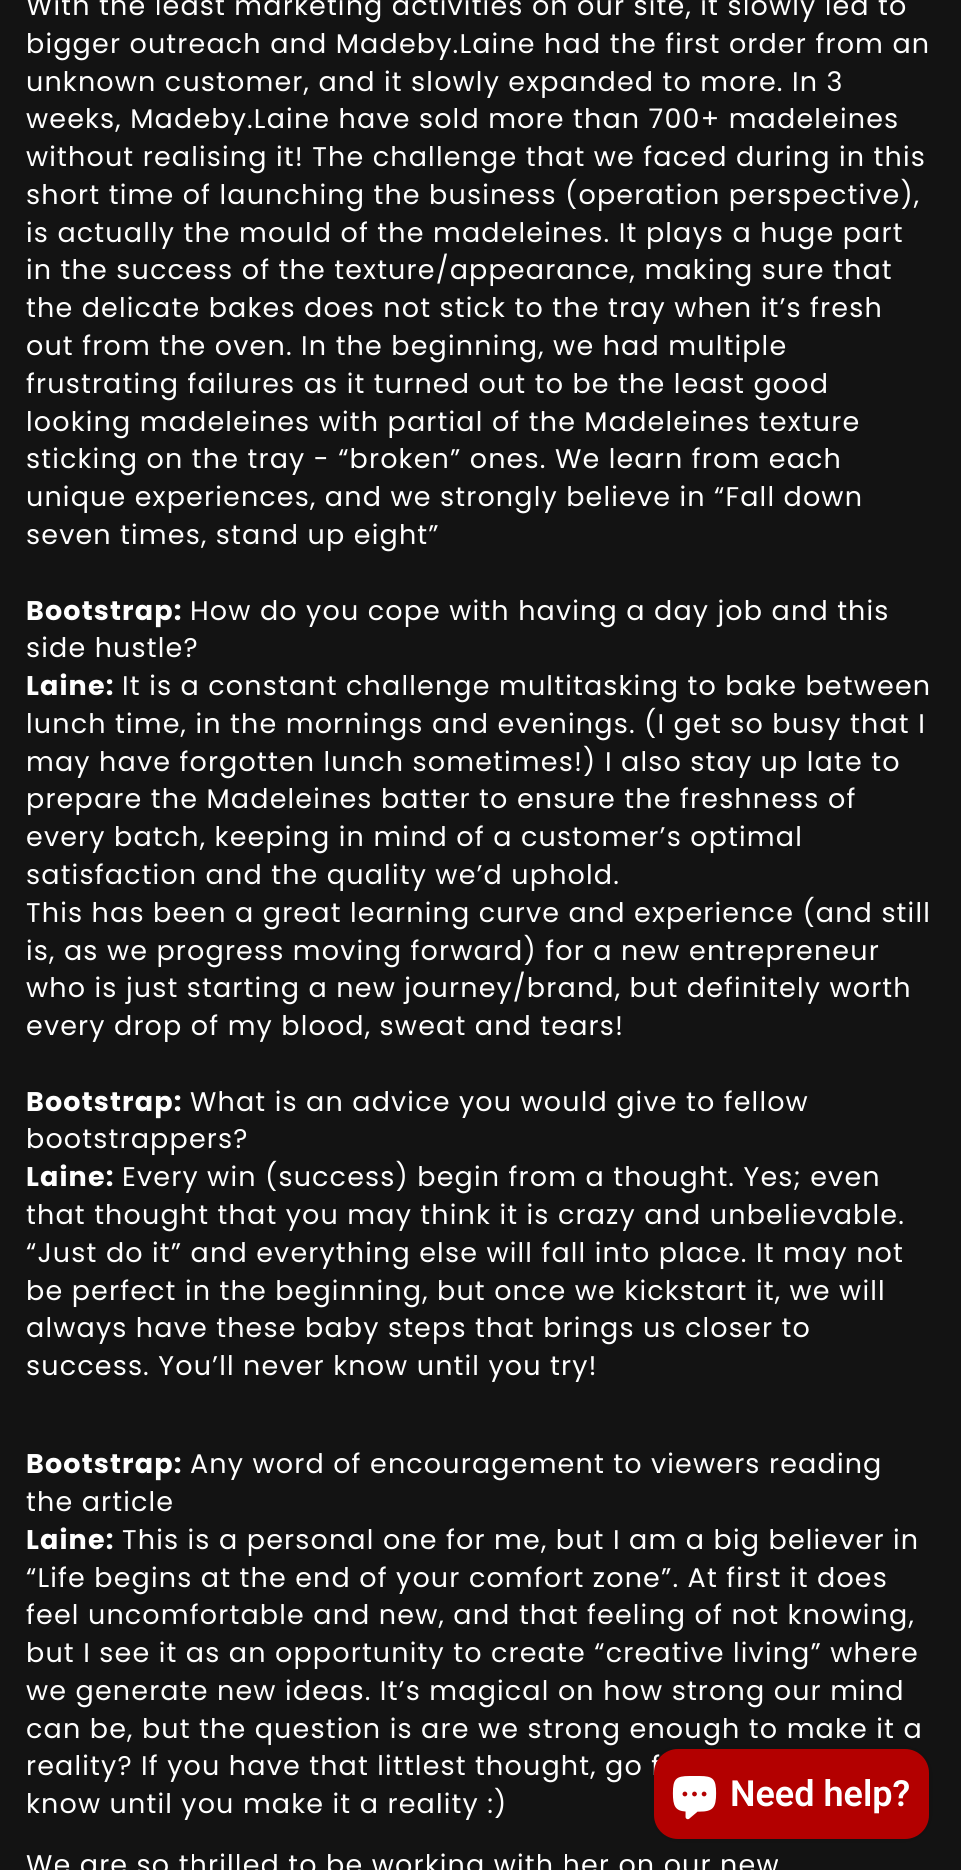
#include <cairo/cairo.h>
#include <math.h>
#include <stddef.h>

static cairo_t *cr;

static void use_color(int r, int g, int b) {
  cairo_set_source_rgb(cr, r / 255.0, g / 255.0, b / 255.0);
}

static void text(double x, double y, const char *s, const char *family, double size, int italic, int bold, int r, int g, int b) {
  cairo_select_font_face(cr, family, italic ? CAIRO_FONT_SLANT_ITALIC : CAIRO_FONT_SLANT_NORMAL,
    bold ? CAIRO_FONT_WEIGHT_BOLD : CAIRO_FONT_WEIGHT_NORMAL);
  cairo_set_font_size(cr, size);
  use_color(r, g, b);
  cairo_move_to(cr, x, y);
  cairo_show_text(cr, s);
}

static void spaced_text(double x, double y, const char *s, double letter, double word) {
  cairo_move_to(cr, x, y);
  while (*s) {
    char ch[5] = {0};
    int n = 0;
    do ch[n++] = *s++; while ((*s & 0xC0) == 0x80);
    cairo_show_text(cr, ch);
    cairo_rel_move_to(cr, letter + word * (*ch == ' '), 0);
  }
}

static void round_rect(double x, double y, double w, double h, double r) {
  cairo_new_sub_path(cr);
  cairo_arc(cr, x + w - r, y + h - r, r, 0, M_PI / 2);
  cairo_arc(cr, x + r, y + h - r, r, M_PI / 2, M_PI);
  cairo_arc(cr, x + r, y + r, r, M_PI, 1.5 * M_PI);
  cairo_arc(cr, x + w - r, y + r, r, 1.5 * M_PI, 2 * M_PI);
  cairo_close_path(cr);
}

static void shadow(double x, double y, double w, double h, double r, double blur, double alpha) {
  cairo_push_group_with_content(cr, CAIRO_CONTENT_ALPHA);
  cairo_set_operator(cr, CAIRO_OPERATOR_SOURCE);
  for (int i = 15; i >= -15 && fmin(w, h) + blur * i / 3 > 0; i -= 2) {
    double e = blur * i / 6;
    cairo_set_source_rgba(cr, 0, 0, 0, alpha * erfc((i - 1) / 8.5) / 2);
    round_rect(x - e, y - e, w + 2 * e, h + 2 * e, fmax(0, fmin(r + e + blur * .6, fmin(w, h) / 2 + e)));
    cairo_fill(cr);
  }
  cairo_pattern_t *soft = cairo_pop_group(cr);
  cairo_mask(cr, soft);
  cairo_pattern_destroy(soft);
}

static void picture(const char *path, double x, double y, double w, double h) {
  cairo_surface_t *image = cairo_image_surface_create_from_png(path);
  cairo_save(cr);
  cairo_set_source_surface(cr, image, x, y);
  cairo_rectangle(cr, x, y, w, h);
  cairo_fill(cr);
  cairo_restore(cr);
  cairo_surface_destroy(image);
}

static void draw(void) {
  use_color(19, 19, 19);
  cairo_paint(cr);
  use_color(0, 0, 0);
  shadow(654, 1749, 275, 90, 24, 4, 0.15);
  cairo_select_font_face(cr, "Poppins", CAIRO_FONT_SLANT_NORMAL, CAIRO_FONT_WEIGHT_NORMAL);
  cairo_set_font_size(cr, 27);
  use_color(255, 255, 255);
  spaced_text(26, 15, "With the least marketing activities on our site, it slowly led to", 1.15, 0);
  spaced_text(26, 53, "bigger outreach and Madeby.Laine had the first order from an", 1.15, 0);
  spaced_text(26, 91, "unknown customer, and it slowly expanded to more. In 3", 1.15, 0);
  spaced_text(26, 128, "weeks, Madeby.Laine have sold more than 700+ madeleines", 1.15, 0);
  spaced_text(26, 166, "without realising it! The challenge that we faced during in this", 1.15, 0);
  spaced_text(26, 204, "short time of launching the business (operation perspective),", 1.15, 0);
  spaced_text(26, 242, "is actually the mould of the madeleines. It plays a huge part", 1.15, 0);
  spaced_text(26, 279, "in the success of the texture/appearance, making sure that", 1.15, 0);
  spaced_text(26, 317, "the delicate bakes does not stick to the tray when it’s fresh", 1.15, 0);
  spaced_text(26, 355, "out from the oven. In the beginning, we had multiple", 1.15, 0);
  spaced_text(26, 393, "frustrating failures as it turned out to be the least good", 1.15, 0);
  spaced_text(26, 431, "looking madeleines with partial of the Madeleines texture", 1.15, 0);
  spaced_text(26, 468, "sticking on the tray - “broken” ones. We learn from each", 1.15, 0);
  spaced_text(26, 506, "unique experiences, and we strongly believe in “Fall down", 1.15, 0);
  spaced_text(26, 544, "seven times, stand up eight”", 1.15, 0);
  cairo_select_font_face(cr, "Poppins", CAIRO_FONT_SLANT_NORMAL, CAIRO_FONT_WEIGHT_BOLD);
  spaced_text(26, 620, "Bootstrap:", 1.15, 0);
  cairo_select_font_face(cr, "Poppins", CAIRO_FONT_SLANT_NORMAL, CAIRO_FONT_WEIGHT_NORMAL);
  spaced_text(190, 620, "How do you cope with having a day job and this", 1.15, 0);
  spaced_text(26, 657, "side hustle?", 1.15, 0);
  cairo_select_font_face(cr, "Poppins", CAIRO_FONT_SLANT_NORMAL, CAIRO_FONT_WEIGHT_BOLD);
  spaced_text(26, 695, "Laine:", 1.15, 0);
  cairo_select_font_face(cr, "Poppins", CAIRO_FONT_SLANT_NORMAL, CAIRO_FONT_WEIGHT_NORMAL);
  spaced_text(122, 695, "It is a constant challenge multitasking to bake between", 1.15, 0);
  spaced_text(26, 733, "lunch time, in the mornings and evenings. (I get so busy that I", 1.15, 0);
  spaced_text(26, 771, "may have forgotten lunch sometimes!) I also stay up late to", 1.15, 0);
  spaced_text(26, 808, "prepare the Madeleines batter to ensure the freshness of", 1.15, 0);
  spaced_text(26, 846, "every batch, keeping in mind of a customer’s optimal", 1.15, 0);
  spaced_text(26, 884, "satisfaction and the quality we’d uphold.", 1.15, 0);
  spaced_text(26, 922, "This has been a great learning curve and experience (and still", 1.15, 0);
  spaced_text(26, 960, "is, as we progress moving forward) for a new entrepreneur", 1.15, 0);
  spaced_text(26, 997, "who is just starting a new journey/brand, but definitely worth", 1.15, 0);
  spaced_text(26, 1035, "every drop of my blood, sweat and tears!", 1.15, 0);
  cairo_select_font_face(cr, "Poppins", CAIRO_FONT_SLANT_NORMAL, CAIRO_FONT_WEIGHT_BOLD);
  spaced_text(26, 1111, "Bootstrap:", 1.15, 0);
  cairo_select_font_face(cr, "Poppins", CAIRO_FONT_SLANT_NORMAL, CAIRO_FONT_WEIGHT_NORMAL);
  spaced_text(190, 1111, "What is an advice you would give to fellow", 1.15, 0);
  spaced_text(26, 1148, "bootstrappers?", 1.15, 0);
  cairo_select_font_face(cr, "Poppins", CAIRO_FONT_SLANT_NORMAL, CAIRO_FONT_WEIGHT_BOLD);
  spaced_text(26, 1186, "Laine:", 1.15, 0);
  cairo_select_font_face(cr, "Poppins", CAIRO_FONT_SLANT_NORMAL, CAIRO_FONT_WEIGHT_NORMAL);
  spaced_text(122, 1186, "Every win (success) begin from a thought. Yes; even", 1.15, 0);
  spaced_text(26, 1224, "that thought that you may think it is crazy and unbelievable.", 1.15, 0);
  spaced_text(26, 1262, "“Just do it” and everything else will fall into place. It may not", 1.15, 0);
  spaced_text(26, 1300, "be perfect in the beginning, but once we kickstart it, we will", 1.15, 0);
  spaced_text(26, 1337, "always have these baby steps that brings us closer to", 1.15, 0);
  spaced_text(26, 1375, "success. You’ll never know until you try!", 1.15, 0);
  cairo_select_font_face(cr, "Poppins", CAIRO_FONT_SLANT_NORMAL, CAIRO_FONT_WEIGHT_BOLD);
  spaced_text(26, 1473, "Bootstrap:", 1.15, 0);
  cairo_select_font_face(cr, "Poppins", CAIRO_FONT_SLANT_NORMAL, CAIRO_FONT_WEIGHT_NORMAL);
  spaced_text(190, 1473, "Any word of encouragement to viewers reading", 1.15, 0);
  spaced_text(26, 1511, "the article", 1.15, 0);
  cairo_select_font_face(cr, "Poppins", CAIRO_FONT_SLANT_NORMAL, CAIRO_FONT_WEIGHT_BOLD);
  spaced_text(26, 1549, "Laine:", 1.15, 0);
  cairo_select_font_face(cr, "Poppins", CAIRO_FONT_SLANT_NORMAL, CAIRO_FONT_WEIGHT_NORMAL);
  spaced_text(122, 1549, "This is a personal one for me, but I am a big believer in", 1.15, 0);
  spaced_text(26, 1587, "“Life begins at the end of your comfort zone”. At first it does", 1.15, 0);
  spaced_text(26, 1624, "feel uncomfortable and new, and that feeling of not knowing,", 1.15, 0);
  spaced_text(26, 1662, "but I see it as an opportunity to create “creative living” where", 1.15, 0);
  spaced_text(26, 1700, "we generate new ideas. It’s magical on how strong our mind", 1.15, 0);
  spaced_text(26, 1738, "can be, but the question is are we strong enough to make it a", 1.15, 0);
  spaced_text(26, 1775, "reality? If you have that littlest thought, go f", 1.15, 0);
  spaced_text(26, 1813, "know until you make it a reality :)", 1.15, 0);
  spaced_text(26, 1874, "We are so thrilled to be working with her on our new", 1.15, 0);
  use_color(179, 0, 0);
  round_rect(654, 1749, 275, 90, 24);
  cairo_fill(cr);
  picture("img_01.png", 672, 1776, 45, 44);
  text(730, 1806, "Need help?", "Roboto SemiBold", 36, 0, 0, 255, 255, 255);
}

int main(void) {
  cairo_surface_t *surface = cairo_image_surface_create(CAIRO_FORMAT_RGB24, 961, 1870);
  cr = cairo_create(surface);
  cairo_font_options_t *options = cairo_font_options_create();
  cairo_font_options_set_hint_metrics(options, CAIRO_HINT_METRICS_OFF);
  cairo_font_options_set_hint_style(options, CAIRO_HINT_STYLE_NONE);
  cairo_set_font_options(cr, options);
  cairo_set_miter_limit(cr, 4);
  draw();
  cairo_surface_write_to_png(surface, "out.png");
  cairo_font_options_destroy(options);
  cairo_destroy(cr);
  cairo_surface_destroy(surface);
  return 0;
}
